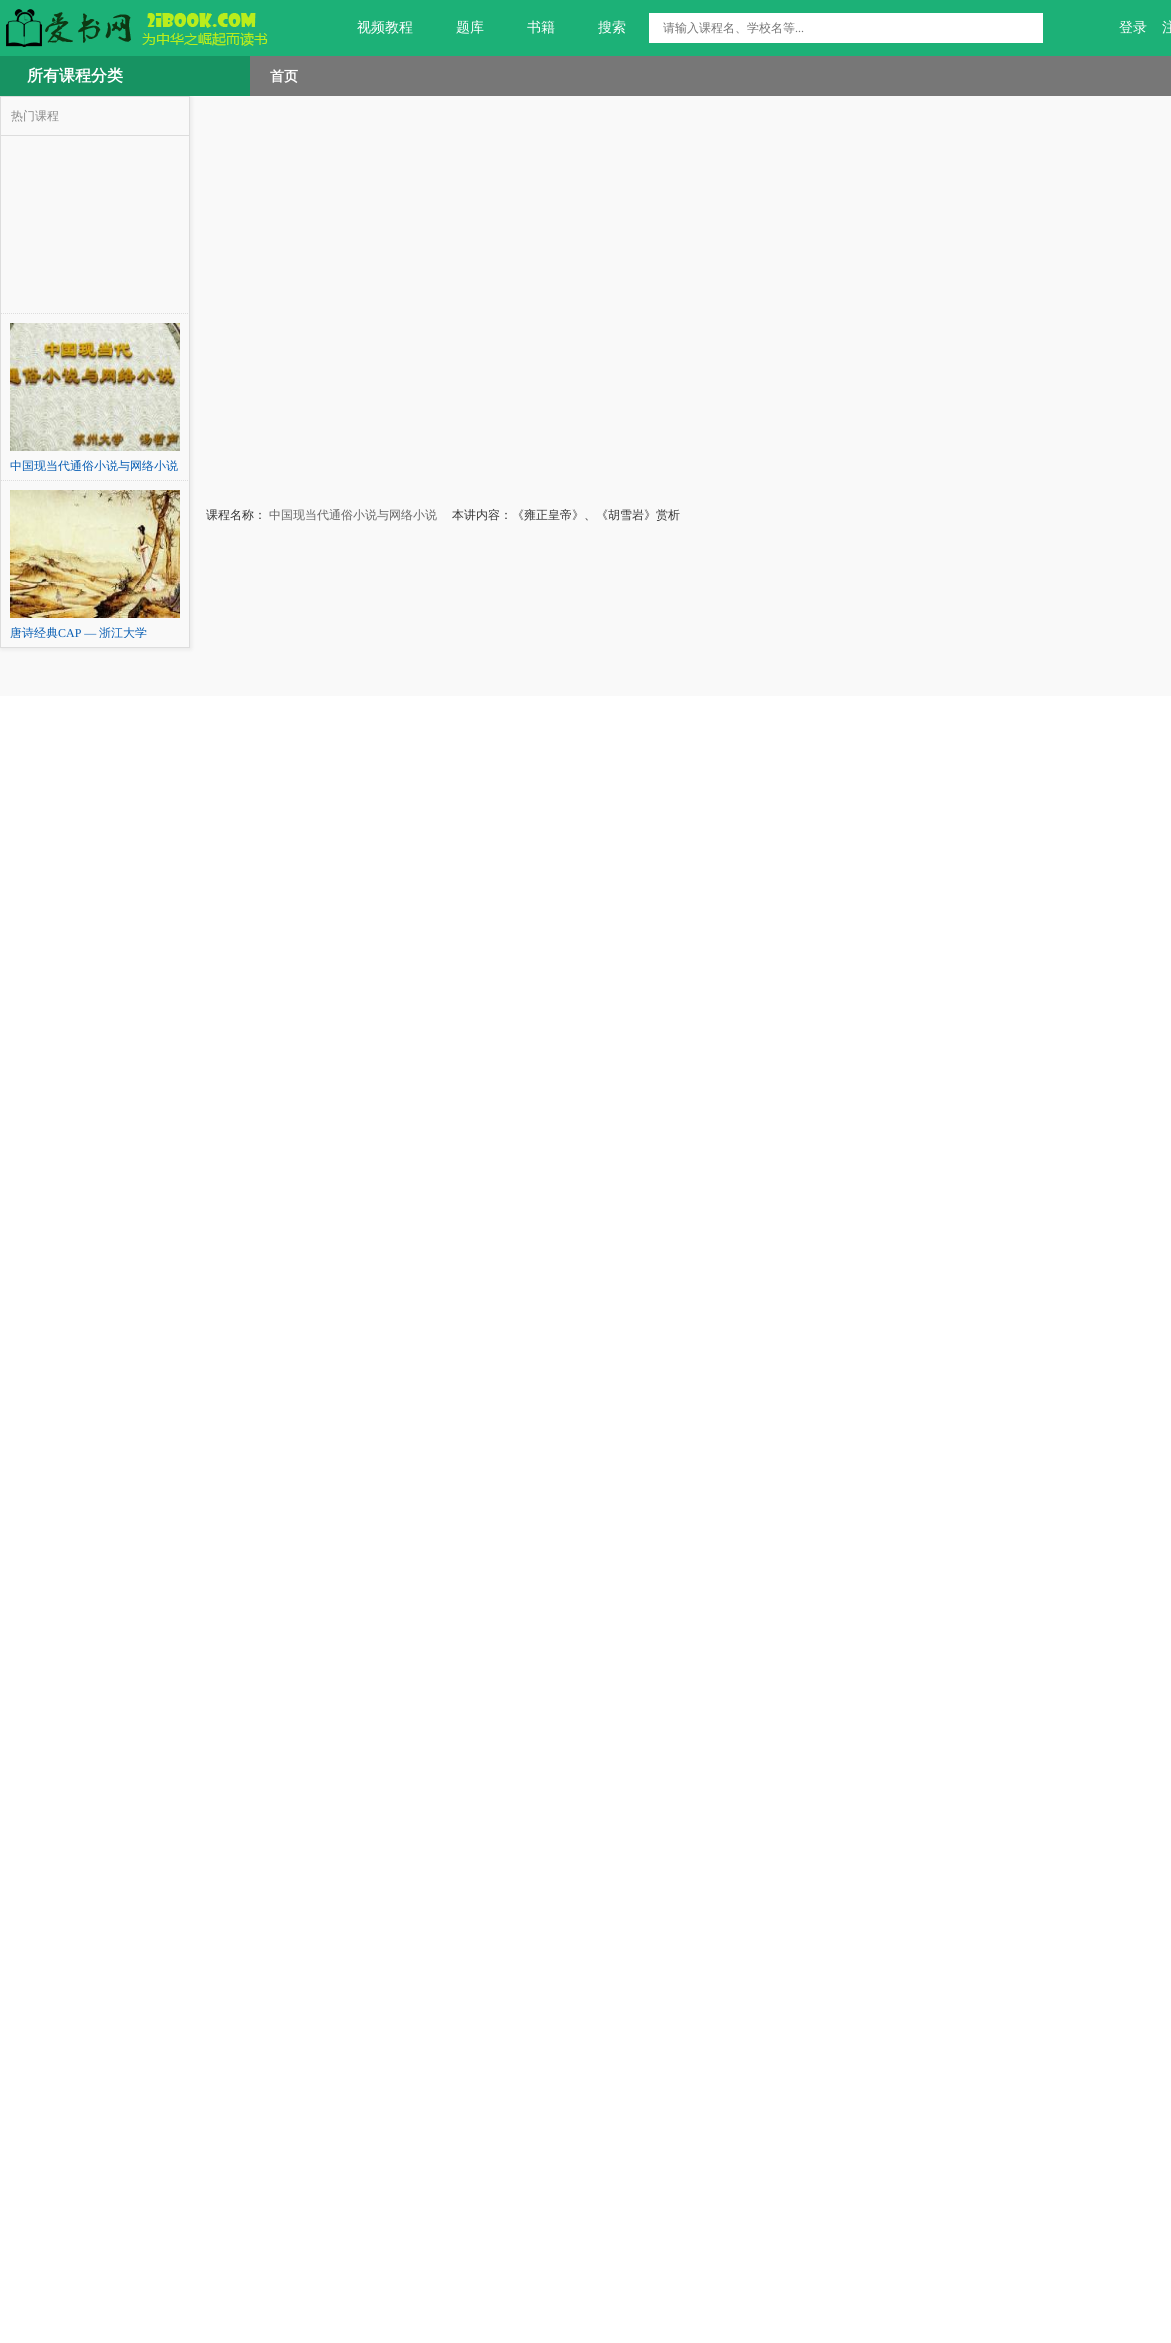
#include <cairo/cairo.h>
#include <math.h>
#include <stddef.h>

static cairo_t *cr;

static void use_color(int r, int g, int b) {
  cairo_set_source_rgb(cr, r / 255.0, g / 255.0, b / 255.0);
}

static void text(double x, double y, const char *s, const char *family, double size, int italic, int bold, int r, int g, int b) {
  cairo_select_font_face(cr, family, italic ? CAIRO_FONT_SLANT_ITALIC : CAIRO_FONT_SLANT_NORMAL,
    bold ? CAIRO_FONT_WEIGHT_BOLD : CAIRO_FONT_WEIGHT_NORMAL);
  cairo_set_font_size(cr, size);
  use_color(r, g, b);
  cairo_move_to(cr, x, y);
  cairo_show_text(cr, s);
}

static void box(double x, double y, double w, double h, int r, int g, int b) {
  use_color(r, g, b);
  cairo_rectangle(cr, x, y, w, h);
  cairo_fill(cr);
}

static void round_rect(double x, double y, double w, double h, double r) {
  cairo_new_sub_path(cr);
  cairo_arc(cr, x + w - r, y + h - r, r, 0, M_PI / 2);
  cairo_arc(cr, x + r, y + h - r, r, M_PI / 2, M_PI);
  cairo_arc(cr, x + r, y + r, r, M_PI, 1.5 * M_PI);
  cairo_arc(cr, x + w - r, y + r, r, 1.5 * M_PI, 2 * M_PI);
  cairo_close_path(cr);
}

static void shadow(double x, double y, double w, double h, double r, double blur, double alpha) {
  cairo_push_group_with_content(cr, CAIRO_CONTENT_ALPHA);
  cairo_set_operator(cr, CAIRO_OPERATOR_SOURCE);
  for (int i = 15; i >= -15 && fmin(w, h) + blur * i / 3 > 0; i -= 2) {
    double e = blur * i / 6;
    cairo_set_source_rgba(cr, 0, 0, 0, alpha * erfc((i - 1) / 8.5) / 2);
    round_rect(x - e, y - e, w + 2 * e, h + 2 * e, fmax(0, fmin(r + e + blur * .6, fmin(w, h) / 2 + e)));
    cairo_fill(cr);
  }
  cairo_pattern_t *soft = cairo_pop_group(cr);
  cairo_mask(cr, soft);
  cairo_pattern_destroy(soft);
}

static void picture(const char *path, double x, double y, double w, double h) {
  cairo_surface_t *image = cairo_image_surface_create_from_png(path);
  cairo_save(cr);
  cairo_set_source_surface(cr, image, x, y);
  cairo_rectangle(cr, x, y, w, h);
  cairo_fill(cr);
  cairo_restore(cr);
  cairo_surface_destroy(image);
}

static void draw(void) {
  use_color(255, 255, 255);
  cairo_paint(cr);
  box(0, 96, 1171, 600, 249, 249, 249);
  box(0, 0, 1171, 56, 28, 177, 119);
  picture("img_01.png", 6, 9, 262, 38);
  box(649, 13, 394, 30, 255, 255, 255);
  box(250, 56, 921, 40, 119, 119, 119);
  cairo_save(cr);
  cairo_set_fill_rule(cr, CAIRO_FILL_RULE_EVEN_ODD);
  cairo_new_path(cr);
  cairo_move_to(cr, 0, 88);
  cairo_line_to(cr, 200, 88);
  cairo_line_to(cr, 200, 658);
  cairo_line_to(cr, 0, 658);
  cairo_close_path(cr);
  cairo_move_to(cr, 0, 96);
  cairo_line_to(cr, 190, 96);
  cairo_line_to(cr, 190, 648);
  cairo_line_to(cr, 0, 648);
  cairo_close_path(cr);
  cairo_clip(cr);
  use_color(0, 0, 0);
  shadow(1, 97, 190, 552, 0, 2.5, 0.08);
  cairo_restore(cr);
  box(0, 56, 250, 40, 23, 147, 98);
  cairo_rectangle(cr, 0.5, 96.5, 189, 551);
  use_color(221, 221, 221);
  cairo_set_line_width(cr, 1);
  cairo_stroke(cr);
  box(1, 135, 188, 1, 221, 221, 221);
  cairo_new_path(cr);
  cairo_move_to(cr, 1, 313.5);
  cairo_line_to(cr, 189, 313.5);
  cairo_set_dash(cr, (double[]){1, 1}, 2, 0);
  cairo_stroke(cr);
  cairo_new_path(cr);
  cairo_move_to(cr, 1, 480.5);
  cairo_line_to(cr, 189, 480.5);
  cairo_stroke(cr);
  picture("img_02.png", 10, 323, 170, 128);
  picture("img_03.png", 10, 490, 170, 128);
  text(357, 32, "视频教程", "WenQuanYi Zen Hei Medium", 14, 0, 0, 255, 255, 255);
  text(456, 32, "题库", "WenQuanYi Zen Hei Medium", 14, 0, 0, 255, 255, 255);
  text(527, 32, "书籍", "WenQuanYi Zen Hei Medium", 14, 0, 0, 255, 255, 255);
  text(598, 32, "搜索", "WenQuanYi Zen Hei Medium", 14, 0, 0, 255, 255, 255);
  text(663, 32, "请输入课程名、学校名等", "WenQuanYi Zen Hei Medium", 12, 0, 0, 117, 117, 117);
  text(795, 32, "...", "Liberation Serif", 12, 0, 0, 117, 117, 117);
  text(1119, 32, "登录", "WenQuanYi Zen Hei Medium", 14, 0, 0, 255, 255, 255);
  text(1162, 32, "注", "WenQuanYi Zen Hei Medium", 14, 0, 0, 255, 255, 255);
  text(27, 81, "所有课程分类", "WenQuanYi Zen Hei", 16, 0, 1, 255, 255, 255);
  text(270, 81, "首页", "WenQuanYi Zen Hei", 14, 0, 1, 255, 255, 255);
  text(11, 120, "热门课程", "WenQuanYi Zen Hei Medium", 12, 0, 0, 136, 136, 136);
  cairo_save(cr);
  cairo_rectangle(cr, 10, 323, 170, 148);
  cairo_clip(cr);
  text(10, 470, "中国现当代通俗小说与网络小说", "WenQuanYi Zen Hei Medium", 12, 0, 0, 7, 93, 179);
  cairo_restore(cr);
  cairo_save(cr);
  cairo_rectangle(cr, 10, 490, 170, 148);
  cairo_clip(cr);
  text(10, 637, "唐诗经典", "WenQuanYi Zen Hei Medium", 12, 0, 0, 7, 93, 179);
  cairo_restore(cr);
  text(58, 637, "CAP —", "Liberation Serif", 12, 0, 0, 7, 93, 179);
  cairo_save(cr);
  cairo_rectangle(cr, 10, 490, 170, 148);
  cairo_clip(cr);
  text(99, 637, "浙江大学", "WenQuanYi Zen Hei Medium", 12, 0, 0, 7, 93, 179);
  cairo_restore(cr);
  text(206, 519, "课程名称：", "WenQuanYi Zen Hei Medium", 12, 0, 0, 51, 51, 51);
  text(269, 519, "中国现当代通俗小说与网络小说", "WenQuanYi Zen Hei Medium", 12, 0, 0, 102, 102, 102);
  text(452, 519, "本讲内容：《雍正皇帝》、《胡雪岩》赏析", "WenQuanYi Zen Hei Medium", 12, 0, 0, 51, 51, 51);
}

int main(void) {
  cairo_surface_t *surface = cairo_image_surface_create(CAIRO_FORMAT_RGB24, 1171, 2343);
  cr = cairo_create(surface);
  cairo_font_options_t *options = cairo_font_options_create();
  cairo_font_options_set_hint_metrics(options, CAIRO_HINT_METRICS_OFF);
  cairo_font_options_set_hint_style(options, CAIRO_HINT_STYLE_NONE);
  cairo_set_font_options(cr, options);
  cairo_set_miter_limit(cr, 4);
  draw();
  cairo_surface_write_to_png(surface, "out.png");
  cairo_font_options_destroy(options);
  cairo_destroy(cr);
  cairo_surface_destroy(surface);
  return 0;
}
